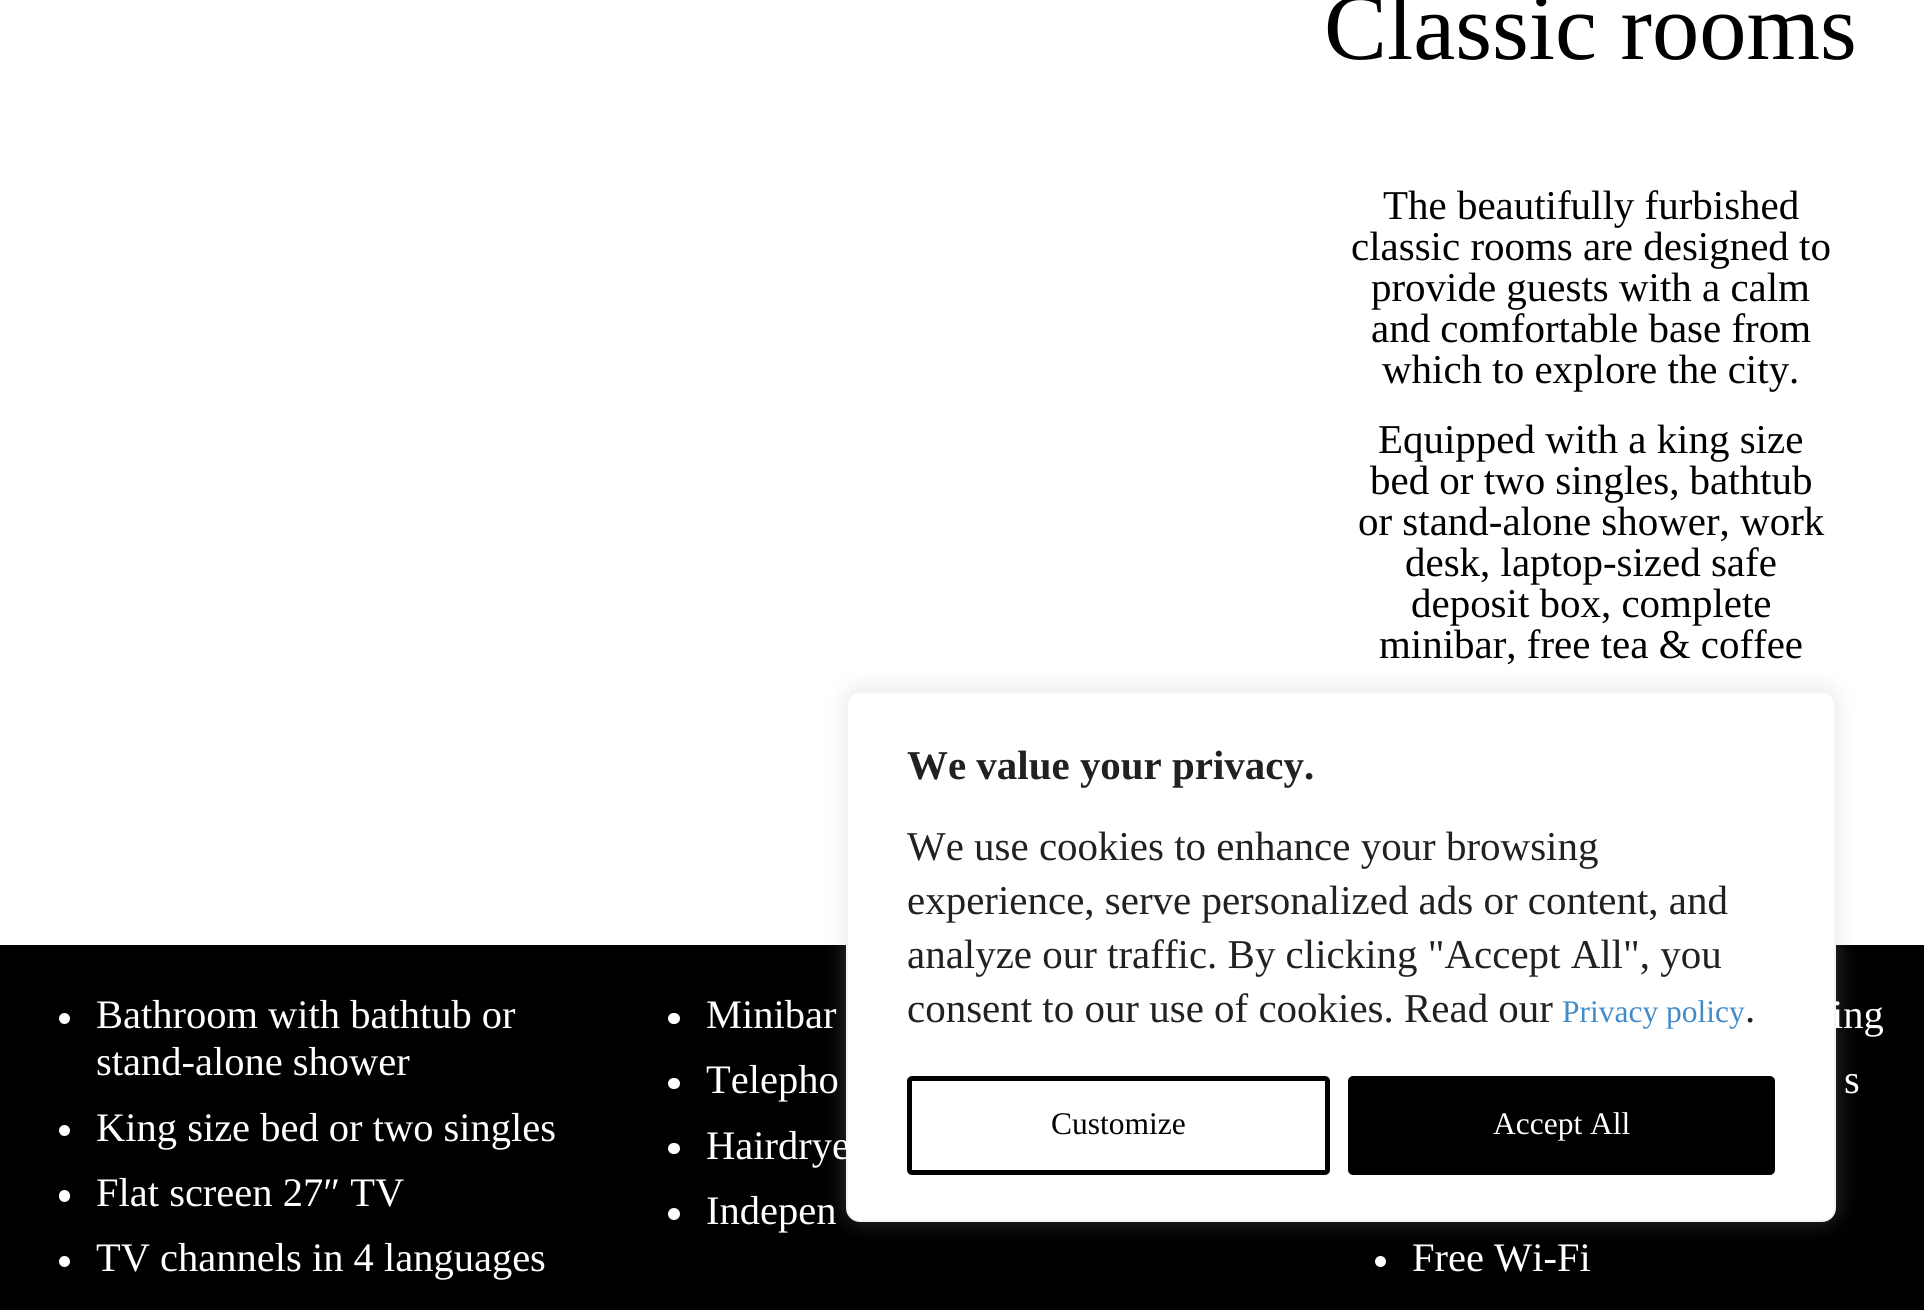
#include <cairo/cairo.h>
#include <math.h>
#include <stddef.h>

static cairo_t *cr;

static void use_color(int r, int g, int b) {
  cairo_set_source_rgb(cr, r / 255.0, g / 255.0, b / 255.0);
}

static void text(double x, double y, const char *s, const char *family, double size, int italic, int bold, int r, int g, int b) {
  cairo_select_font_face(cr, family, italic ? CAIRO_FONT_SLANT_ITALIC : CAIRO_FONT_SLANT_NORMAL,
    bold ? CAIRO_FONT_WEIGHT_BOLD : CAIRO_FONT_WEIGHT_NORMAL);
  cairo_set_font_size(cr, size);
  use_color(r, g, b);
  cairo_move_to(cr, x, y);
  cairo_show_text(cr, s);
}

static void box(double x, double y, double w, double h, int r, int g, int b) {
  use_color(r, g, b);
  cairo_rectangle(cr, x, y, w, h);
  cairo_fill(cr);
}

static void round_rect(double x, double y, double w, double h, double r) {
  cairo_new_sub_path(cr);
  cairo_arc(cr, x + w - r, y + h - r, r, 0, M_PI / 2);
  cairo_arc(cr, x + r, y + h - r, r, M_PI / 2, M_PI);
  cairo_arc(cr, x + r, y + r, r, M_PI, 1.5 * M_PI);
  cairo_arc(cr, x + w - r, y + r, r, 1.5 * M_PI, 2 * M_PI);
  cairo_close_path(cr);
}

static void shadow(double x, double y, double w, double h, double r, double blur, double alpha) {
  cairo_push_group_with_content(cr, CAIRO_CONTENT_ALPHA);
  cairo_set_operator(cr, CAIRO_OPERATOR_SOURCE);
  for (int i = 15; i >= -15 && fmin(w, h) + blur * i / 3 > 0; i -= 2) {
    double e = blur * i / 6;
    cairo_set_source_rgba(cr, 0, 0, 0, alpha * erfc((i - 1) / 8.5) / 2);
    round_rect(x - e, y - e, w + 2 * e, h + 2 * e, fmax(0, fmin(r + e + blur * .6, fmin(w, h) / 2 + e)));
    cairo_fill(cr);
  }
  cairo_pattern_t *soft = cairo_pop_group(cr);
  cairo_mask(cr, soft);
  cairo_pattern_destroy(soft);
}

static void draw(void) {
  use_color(255, 255, 255);
  cairo_paint(cr);
  box(0, 945, 1924, 365, 0, 0, 0);
  use_color(255, 255, 255);
  cairo_arc(cr, 64.5, 1018.5, 5.5, 0, 2 * M_PI);
  cairo_fill(cr);
  cairo_arc(cr, 64.5, 1130.5, 5.5, 0, 2 * M_PI);
  cairo_fill(cr);
  round_rect(59, 1190, 11, 12, 5.5);
  cairo_fill(cr);
  cairo_arc(cr, 64.5, 1261.5, 5.5, 0, 2 * M_PI);
  cairo_fill(cr);
  round_rect(668, 1013, 12, 11, 5.5);
  cairo_fill(cr);
  round_rect(668, 1078, 12, 11, 5.5);
  cairo_fill(cr);
  round_rect(668, 1143, 12, 11, 5.5);
  cairo_fill(cr);
  cairo_arc(cr, 674, 1214, 6, 0, 2 * M_PI);
  cairo_fill(cr);
  cairo_arc(cr, 1380.5, 1261.5, 5.5, 0, 2 * M_PI);
  cairo_fill(cr);
  use_color(172, 171, 171);
  shadow(846, 689, 990, 531, 14, 11, 0.3);
  use_color(255, 255, 255);
  round_rect(847, 692, 988, 529, 13);
  cairo_fill_preserve(cr);
  use_color(244, 244, 244);
  cairo_stroke(cr);
  round_rect(909.5, 1078.5, 418, 94, 2.5);
  use_color(0, 0, 0);
  cairo_set_line_width(cr, 5);
  cairo_stroke(cr);
  round_rect(1350.5, 1078.5, 422, 94, 2.5);
  cairo_fill_preserve(cr);
  cairo_stroke(cr);
  text(1324, 59, "Classic rooms", "Liberation Serif", 94.5, 0, 0, 0, 0, 0);
  text(1383, 219, "The beautifully furbished", "Liberation Serif", 40.95, 0, 0, 0, 0, 0);
  text(1351, 260, "classic rooms are designed to", "Liberation Serif", 40.95, 0, 0, 0, 0, 0);
  text(1371, 301, "provide guests with a calm", "Liberation Serif", 40.95, 0, 0, 0, 0, 0);
  text(1371, 342, "and comfortable base from", "Liberation Serif", 40.95, 0, 0, 0, 0, 0);
  text(1382, 383, "which to explore the city.", "Liberation Serif", 40.95, 0, 0, 0, 0, 0);
  text(1378, 453, "Equipped with a king size", "Liberation Serif", 40.95, 0, 0, 0, 0, 0);
  text(1370, 494, "bed or two singles, bathtub", "Liberation Serif", 40.95, 0, 0, 0, 0, 0);
  text(1358, 535, "or stand-alone shower, work", "Liberation Serif", 40.95, 0, 0, 0, 0, 0);
  text(1405, 576, "desk, laptop-sized safe", "Liberation Serif", 40.95, 0, 0, 0, 0, 0);
  text(1411, 617, "deposit box, complete", "Liberation Serif", 40.95, 0, 0, 0, 0, 0);
  text(1379, 658, "minibar, free tea & coffee", "Liberation Serif", 40.95, 0, 0, 0, 0, 0);
  text(96, 1028, "Bathroom with bathtub or", "Liberation Serif", 40.5, 0, 0, 255, 255, 255);
  text(96, 1075, "stand-alone shower", "Liberation Serif", 40.5, 0, 0, 255, 255, 255);
  text(96, 1141, "King size bed or two singles", "Liberation Serif", 40.5, 0, 0, 255, 255, 255);
  text(96, 1206, "Flat screen 27″ TV", "Liberation Serif", 40.5, 0, 0, 255, 255, 255);
  text(96, 1271, "TV channels in 4 languages", "Liberation Serif", 40.5, 0, 0, 255, 255, 255);
  text(706, 1028, "Minibar", "Liberation Serif", 40.5, 0, 0, 255, 255, 255);
  text(706, 1093, "Telepho", "Liberation Serif", 40.5, 0, 0, 255, 255, 255);
  text(706, 1159, "Hairdrye", "Liberation Serif", 40.5, 0, 0, 255, 255, 255);
  text(706, 1224, "Indepen", "Liberation Serif", 40.5, 0, 0, 255, 255, 255);
  text(1832, 1028, "ing", "Liberation Serif", 40.5, 0, 0, 255, 255, 255);
  text(1844, 1093, "s", "Liberation Serif", 40.5, 0, 0, 255, 255, 255);
  text(1412, 1271, "Free Wi-Fi", "Liberation Serif", 40.5, 0, 0, 255, 255, 255);
  text(907, 779, "We value your privacy.", "Liberation Serif", 40.95, 0, 1, 33, 33, 33);
  text(907, 860, "We use cookies to enhance your browsing", "Liberation Serif", 40.95, 0, 0, 33, 33, 33);
  text(907, 914, "experience, serve personalized ads or content, and", "Liberation Serif", 40.95, 0, 0, 33, 33, 33);
  text(907, 968, "analyze our traffic. By clicking \"Accept All\", you", "Liberation Serif", 40.95, 0, 0, 33, 33, 33);
  text(907, 1022, "consent to our use of cookies. Read our", "Liberation Serif", 40.95, 0, 0, 33, 33, 33);
  text(1562, 1022, "Privacy policy", "Liberation Serif", 31.5, 0, 0, 66, 139, 202);
  text(1745, 1022, ".", "Liberation Serif", 40.95, 0, 0, 33, 33, 33);
  text(1051, 1134, "Customize", "Liberation Serif", 31.5, 0, 0, 0, 0, 0);
  text(1493, 1134, "Accept All", "Liberation Serif", 31.5, 0, 0, 255, 255, 255);
}

int main(void) {
  cairo_surface_t *surface = cairo_image_surface_create(CAIRO_FORMAT_RGB24, 1924, 1310);
  cr = cairo_create(surface);
  cairo_font_options_t *options = cairo_font_options_create();
  cairo_font_options_set_hint_metrics(options, CAIRO_HINT_METRICS_OFF);
  cairo_font_options_set_hint_style(options, CAIRO_HINT_STYLE_NONE);
  cairo_set_font_options(cr, options);
  cairo_set_miter_limit(cr, 4);
  draw();
  cairo_surface_write_to_png(surface, "out.png");
  cairo_font_options_destroy(options);
  cairo_destroy(cr);
  cairo_surface_destroy(surface);
  return 0;
}
